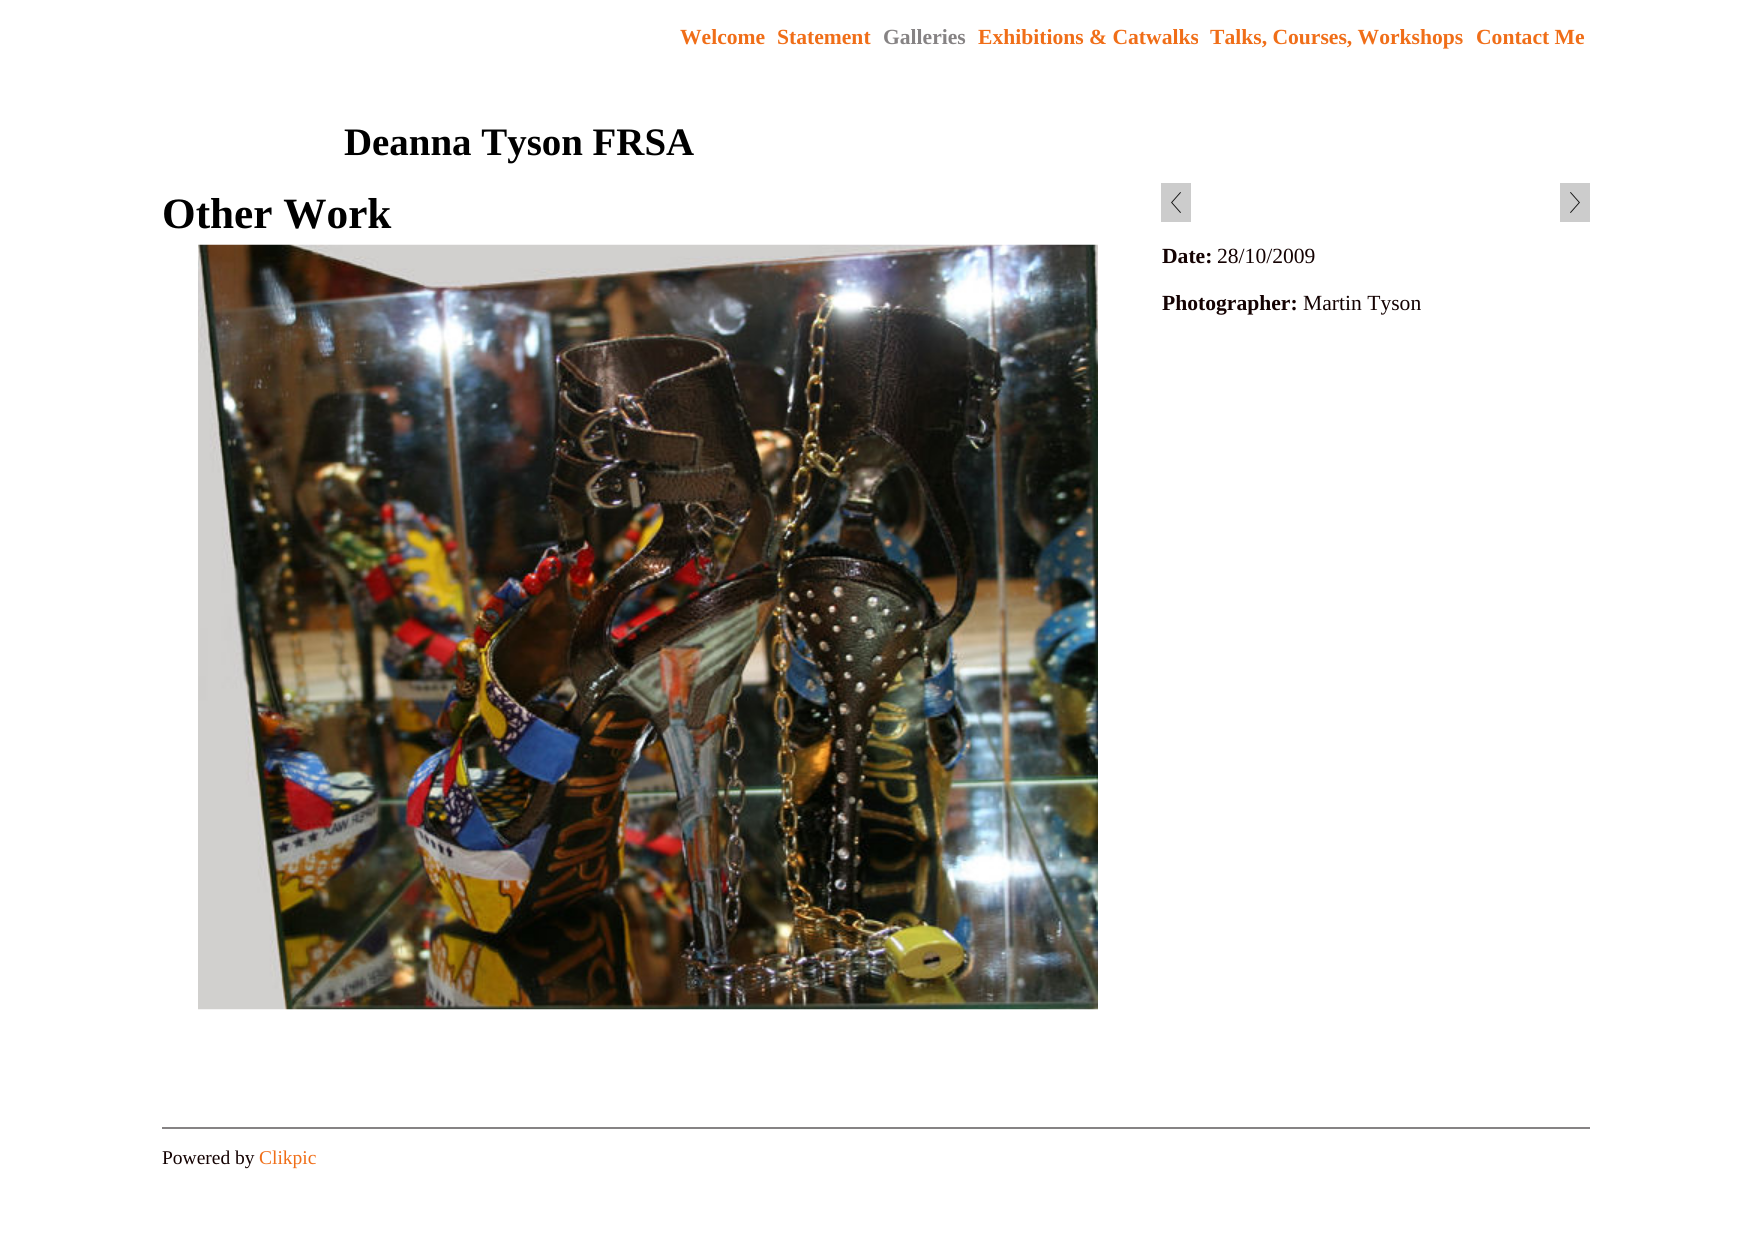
#include <cairo/cairo.h>
#include <math.h>
#include <stddef.h>

static cairo_t *cr;

static void use_color(int r, int g, int b) {
  cairo_set_source_rgb(cr, r / 255.0, g / 255.0, b / 255.0);
}

static void text(double x, double y, const char *s, const char *family, double size, int italic, int bold, int r, int g, int b) {
  cairo_select_font_face(cr, family, italic ? CAIRO_FONT_SLANT_ITALIC : CAIRO_FONT_SLANT_NORMAL,
    bold ? CAIRO_FONT_WEIGHT_BOLD : CAIRO_FONT_WEIGHT_NORMAL);
  cairo_set_font_size(cr, size);
  use_color(r, g, b);
  cairo_move_to(cr, x, y);
  cairo_show_text(cr, s);
}

static void box(double x, double y, double w, double h, int r, int g, int b) {
  use_color(r, g, b);
  cairo_rectangle(cr, x, y, w, h);
  cairo_fill(cr);
}

static void picture(const char *path, double x, double y, double w, double h) {
  cairo_surface_t *image = cairo_image_surface_create_from_png(path);
  cairo_save(cr);
  cairo_set_source_surface(cr, image, x, y);
  cairo_rectangle(cr, x, y, w, h);
  cairo_fill(cr);
  cairo_restore(cr);
  cairo_surface_destroy(image);
}

static void draw(void) {
  use_color(255, 255, 255);
  cairo_paint(cr);
  picture("img_01.png", 198, 244, 900, 766);
  box(1161, 183, 30, 39, 204, 204, 204);
  picture("img_02.png", 1171, 192, 10, 21);
  box(1560, 183, 30, 39, 204, 204, 204);
  picture("img_03.png", 1570, 192, 10, 21);
  box(162, 1127, 1428, 2, 134, 131, 132);
  text(680, 44, "Welcome", "Liberation Serif", 21.6, 0, 1, 240, 110, 24);
  text(777, 44, "Statement", "Liberation Serif", 21.6, 0, 1, 240, 110, 24);
  text(883, 44, "Galleries", "Liberation Serif", 21.6, 0, 1, 134, 131, 132);
  text(978, 44, "Exhibitions & Catwalks", "Liberation Serif", 21.6, 0, 1, 240, 110, 24);
  text(1210, 44, "Talks, Courses, Workshops", "Liberation Serif", 21.6, 0, 1, 240, 110, 24);
  text(1476, 44, "Contact Me", "Liberation Serif", 21.6, 0, 1, 240, 110, 24);
  text(344, 155, "Deanna Tyson FRSA", "Liberation Serif", 38.9, 0, 1, 0, 0, 0);
  text(162, 228, "Other Work", "Liberation Serif", 43.25, 0, 1, 0, 0, 0);
  text(1162, 263, "Date:", "Liberation Serif", 21.6, 0, 1, 20, 2, 2);
  text(1217, 263, "28/10/2009", "Liberation Serif", 21.6, 0, 0, 20, 2, 2);
  text(1162, 310, "Photographer:", "Liberation Serif", 21.6, 0, 1, 20, 2, 2);
  text(1303, 310, "Martin Tyson", "Liberation Serif", 21.6, 0, 0, 20, 2, 2);
  text(162, 1164, "Powered by", "Liberation Serif", 19.5, 0, 0, 20, 2, 2);
  text(259, 1164, "Clikpic", "Liberation Serif", 19.5, 0, 0, 240, 110, 24);
}

int main(void) {
  cairo_surface_t *surface = cairo_image_surface_create(CAIRO_FORMAT_RGB24, 1751, 1234);
  cr = cairo_create(surface);
  cairo_font_options_t *options = cairo_font_options_create();
  cairo_font_options_set_hint_metrics(options, CAIRO_HINT_METRICS_OFF);
  cairo_font_options_set_hint_style(options, CAIRO_HINT_STYLE_NONE);
  cairo_set_font_options(cr, options);
  cairo_set_miter_limit(cr, 4);
  draw();
  cairo_surface_write_to_png(surface, "out.png");
  cairo_font_options_destroy(options);
  cairo_destroy(cr);
  cairo_surface_destroy(surface);
  return 0;
}
